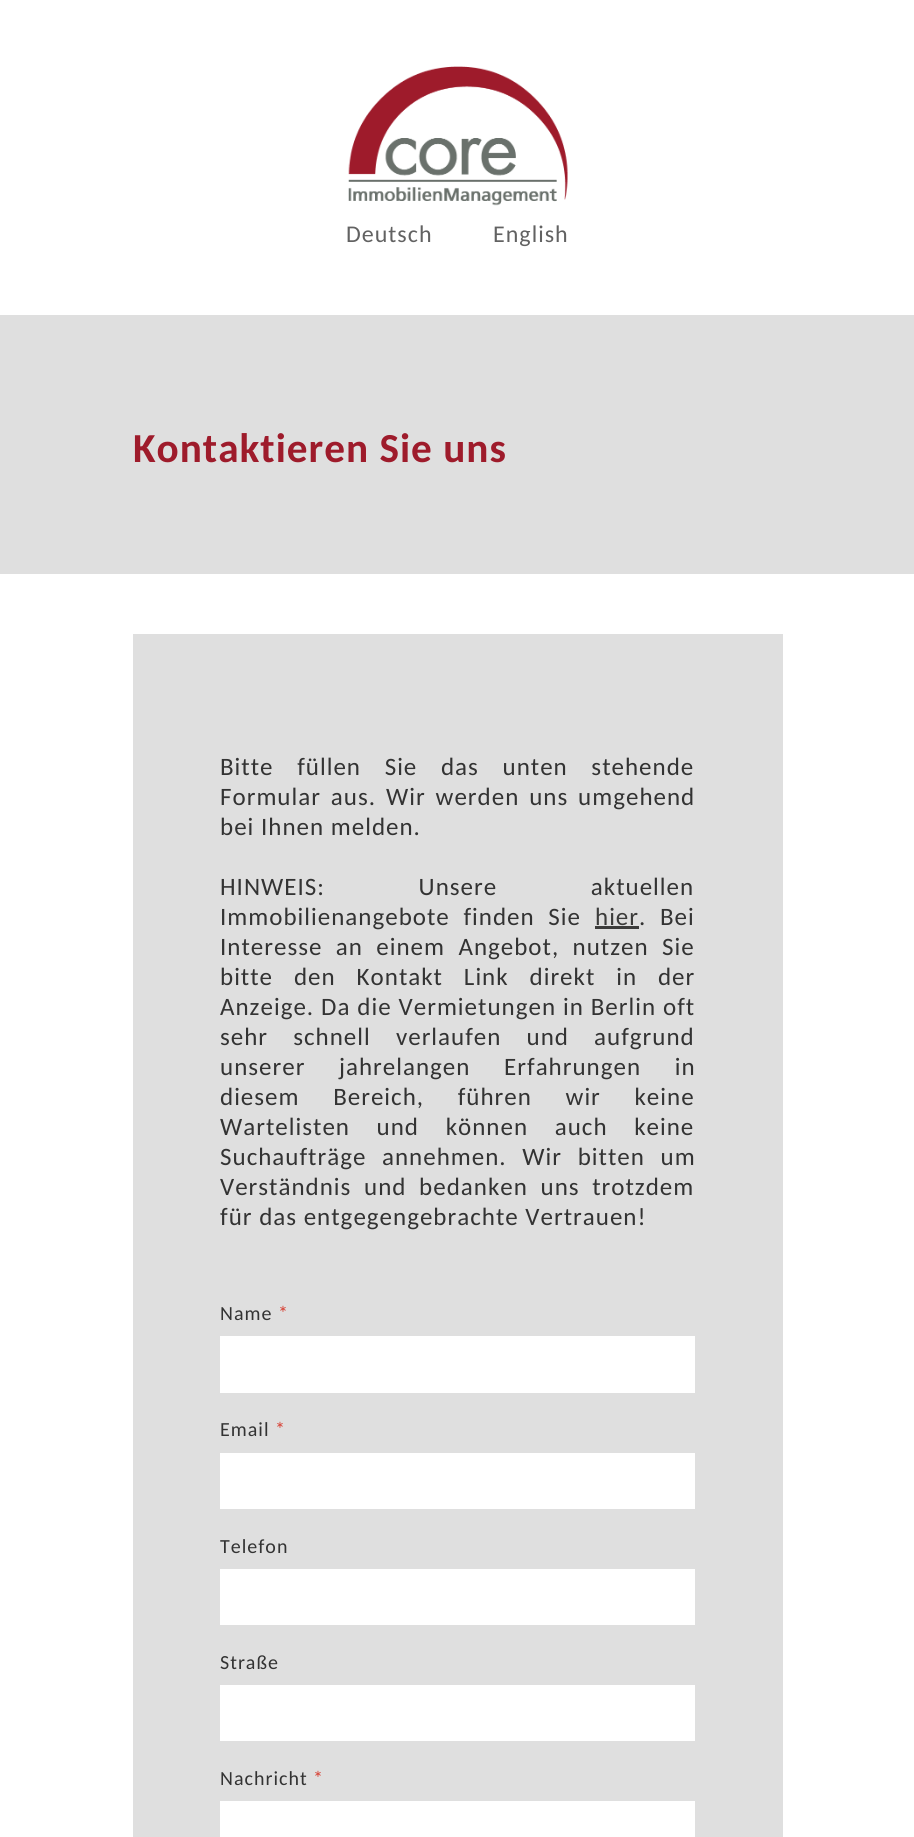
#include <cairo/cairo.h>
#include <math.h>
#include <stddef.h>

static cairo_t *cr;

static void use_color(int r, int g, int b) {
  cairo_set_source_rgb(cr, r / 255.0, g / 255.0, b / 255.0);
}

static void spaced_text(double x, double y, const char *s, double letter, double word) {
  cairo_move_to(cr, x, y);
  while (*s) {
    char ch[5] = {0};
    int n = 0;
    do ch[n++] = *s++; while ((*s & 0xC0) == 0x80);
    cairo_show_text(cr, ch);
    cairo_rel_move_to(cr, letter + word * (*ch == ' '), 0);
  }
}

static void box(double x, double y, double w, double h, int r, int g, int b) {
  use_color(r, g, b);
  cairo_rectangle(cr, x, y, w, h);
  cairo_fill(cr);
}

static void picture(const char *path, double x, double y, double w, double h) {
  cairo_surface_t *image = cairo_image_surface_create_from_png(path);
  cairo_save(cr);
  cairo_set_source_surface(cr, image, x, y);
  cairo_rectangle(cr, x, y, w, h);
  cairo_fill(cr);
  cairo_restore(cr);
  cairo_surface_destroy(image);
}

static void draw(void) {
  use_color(255, 255, 255);
  cairo_paint(cr);
  picture("img_01.png", 348, 66, 220, 140);
  box(0, 315, 914, 259, 223, 223, 223);
  box(133, 634, 650, 1203, 223, 223, 223);
  box(595, 926, 44, 3, 60, 60, 59);
  box(220, 1336, 475, 57, 255, 255, 255);
  box(220, 1453, 475, 56, 255, 255, 255);
  box(220, 1569, 475, 56, 255, 255, 255);
  box(220, 1685, 475, 56, 255, 255, 255);
  box(220, 1801, 475, 36, 255, 255, 255);
  cairo_select_font_face(cr, "Carlito", CAIRO_FONT_SLANT_NORMAL, CAIRO_FONT_WEIGHT_NORMAL);
  cairo_set_font_size(cr, 24);
  use_color(98, 98, 98);
  spaced_text(346, 242, "Deutsch", 1, 0);
  spaced_text(493, 242, "English", 1, 0);
  cairo_select_font_face(cr, "Carlito", CAIRO_FONT_SLANT_NORMAL, CAIRO_FONT_WEIGHT_BOLD);
  cairo_set_font_size(cr, 41.25);
  use_color(158, 27, 43);
  spaced_text(133, 462, "Kontaktieren Sie uns", 1, 0);
  cairo_select_font_face(cr, "Carlito", CAIRO_FONT_SLANT_NORMAL, CAIRO_FONT_WEIGHT_NORMAL);
  cairo_set_font_size(cr, 25);
  use_color(51, 51, 51);
  spaced_text(220, 775, "Bitte füllen Sie das unten stehende", 1, 17);
  spaced_text(220, 805, "Formular aus. Wir werden uns umgehend", 1, 3.25);
  spaced_text(220, 835, "bei Ihnen melden.", 1, 0);
  spaced_text(220, 895, "HINWEIS: Unsere aktuellen", 1, 87);
  spaced_text(220, 925, "Immobilienangebote finden Sie", 1, 7);
  use_color(60, 60, 59);
  spaced_text(595, 925, "hier", 1, 0);
  use_color(51, 51, 51);
  spaced_text(639, 925, ". Bei", 1, 7);
  spaced_text(220, 955, "Interesse an einem Angebot, nutzen Sie", 1, 6.75);
  spaced_text(220, 985, "bitte den Kontakt Link direkt in der", 1, 14.25);
  spaced_text(220, 1015, "Anzeige. Da die Vermietungen in Berlin oft", 1, 0.25);
  spaced_text(220, 1045, "sehr schnell verlaufen und aufgrund", 1, 18.5);
  spaced_text(220, 1075, "unserer jahrelangen Erfahrungen in", 1, 27);
  spaced_text(220, 1105, "diesem Bereich, führen wir keine", 1, 27);
  spaced_text(220, 1135, "Wartelisten und können auch keine", 1, 20);
  spaced_text(220, 1165, "Suchaufträge annehmen. Wir bitten um", 1, 9);
  spaced_text(220, 1195, "Verständnis und bedanken uns trotzdem", 1, 6);
  spaced_text(220, 1225, "für das entgegengebrachte Vertrauen!", 1, 0);
  cairo_set_font_size(cr, 20);
  spaced_text(220, 1320, "Name", 1, 0);
  use_color(215, 62, 49);
  spaced_text(278, 1320, "*", 1, 0);
  use_color(51, 51, 51);
  spaced_text(220, 1436, "Email", 1, 0);
  use_color(215, 62, 49);
  spaced_text(275, 1436, "*", 1, 0);
  use_color(51, 51, 51);
  spaced_text(220, 1553, "Telefon", 1, 0);
  spaced_text(220, 1669, "Straße", 1, 0);
  spaced_text(220, 1785, "Nachricht", 1, 0);
  use_color(215, 62, 49);
  spaced_text(313, 1785, "*", 1, 0);
}

int main(void) {
  cairo_surface_t *surface = cairo_image_surface_create(CAIRO_FORMAT_RGB24, 914, 1837);
  cr = cairo_create(surface);
  cairo_font_options_t *options = cairo_font_options_create();
  cairo_font_options_set_hint_metrics(options, CAIRO_HINT_METRICS_OFF);
  cairo_font_options_set_hint_style(options, CAIRO_HINT_STYLE_NONE);
  cairo_set_font_options(cr, options);
  cairo_set_miter_limit(cr, 4);
  draw();
  cairo_surface_write_to_png(surface, "out.png");
  cairo_font_options_destroy(options);
  cairo_destroy(cr);
  cairo_surface_destroy(surface);
  return 0;
}
